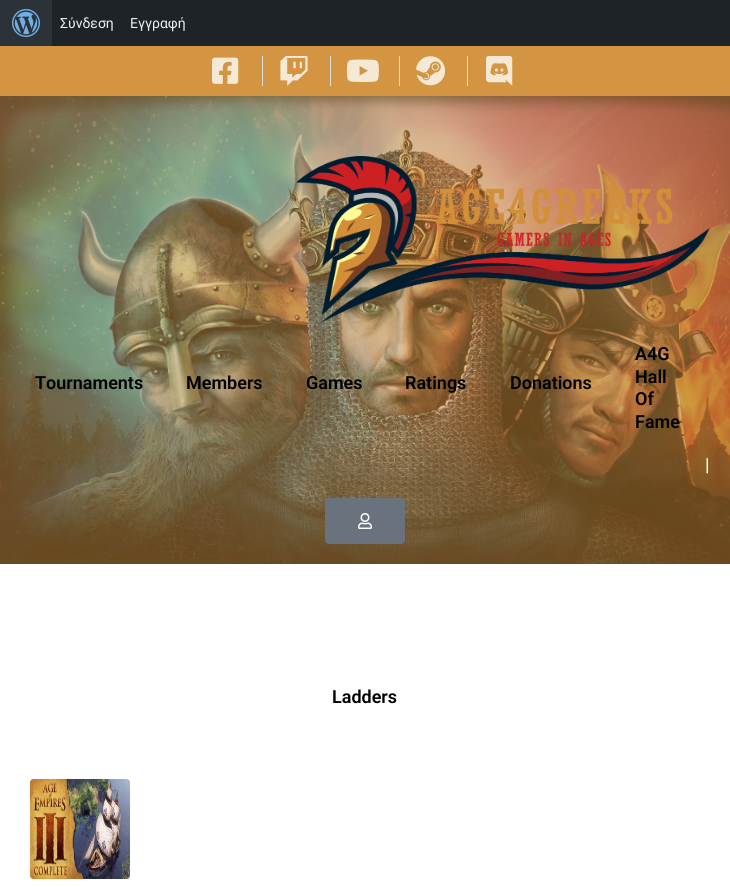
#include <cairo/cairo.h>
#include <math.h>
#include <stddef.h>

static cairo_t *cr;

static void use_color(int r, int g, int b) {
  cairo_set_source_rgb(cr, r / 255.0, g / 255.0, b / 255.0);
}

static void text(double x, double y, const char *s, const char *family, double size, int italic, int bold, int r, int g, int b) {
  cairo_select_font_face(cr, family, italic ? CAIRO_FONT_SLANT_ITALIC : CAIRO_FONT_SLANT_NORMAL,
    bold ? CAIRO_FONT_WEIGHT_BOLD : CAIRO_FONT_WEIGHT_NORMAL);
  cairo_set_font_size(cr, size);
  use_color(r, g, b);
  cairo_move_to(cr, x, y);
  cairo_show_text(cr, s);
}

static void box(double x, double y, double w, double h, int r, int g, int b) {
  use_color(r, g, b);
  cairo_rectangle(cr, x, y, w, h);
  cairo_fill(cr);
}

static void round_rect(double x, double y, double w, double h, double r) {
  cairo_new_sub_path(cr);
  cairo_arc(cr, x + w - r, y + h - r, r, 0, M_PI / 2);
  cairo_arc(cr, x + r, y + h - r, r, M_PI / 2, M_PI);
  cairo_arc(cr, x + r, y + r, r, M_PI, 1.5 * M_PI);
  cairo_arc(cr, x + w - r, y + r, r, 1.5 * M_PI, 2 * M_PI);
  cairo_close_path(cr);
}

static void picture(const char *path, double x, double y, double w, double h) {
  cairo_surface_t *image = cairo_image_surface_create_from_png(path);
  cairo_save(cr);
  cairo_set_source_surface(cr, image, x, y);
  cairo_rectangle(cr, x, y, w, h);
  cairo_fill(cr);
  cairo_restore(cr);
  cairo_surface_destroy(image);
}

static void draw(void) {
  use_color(255, 255, 255);
  cairo_paint(cr);
  box(52, 0, 678, 46, 29, 35, 39);
  box(0, 0, 52, 46, 44, 51, 56);
  picture("img_01.png", 12, 9, 28, 28);
  box(0, 46, 730, 50, 211, 149, 66);
  picture("img_02.png", 212, 57, 27, 27);
  box(262, 56, 1, 30, 221, 221, 221);
  picture("img_03.png", 280, 56, 28, 30);
  box(330, 56, 1, 30, 221, 221, 221);
  picture("img_04.png", 346, 59, 33, 23);
  box(399, 56, 1, 30, 221, 221, 221);
  picture("img_05.png", 416, 56, 30, 30);
  box(467, 56, 1, 30, 221, 221, 221);
  picture("img_06.png", 486, 56, 27, 30);
  picture("img_07.png", 0, 96, 730, 468);
  picture("img_08.png", 296, 156, 414, 167);
  use_color(105, 114, 125);
  round_rect(325, 498, 80, 46, 4);
  cairo_fill(cr);
  picture("img_09.png", 358, 513, 14, 16);
  picture("img_10.png", 30, 779, 100, 100);
  text(60, 28, "Σύνδεση", "Roboto", 14, 0, 0, 240, 240, 241);
  text(130, 28, "Εγγραφή", "Roboto", 14, 0, 0, 240, 240, 241);
  text(35, 389, "Tournaments", "Roboto SemiBold", 18, 0, 0, 0, 0, 0);
  text(186, 389, "Members", "Roboto SemiBold", 18, 0, 0, 0, 0, 0);
  text(306, 389, "Games", "Roboto SemiBold", 18, 0, 0, 0, 0, 0);
  text(405, 389, "Ratings", "Roboto SemiBold", 18, 0, 0, 0, 0, 0);
  text(510, 389, "Donations", "Roboto SemiBold", 18, 0, 0, 0, 0, 0);
  text(635, 360, "A4G", "Roboto SemiBold", 18, 0, 0, 0, 0, 0);
  text(635, 383, "Hall", "Roboto SemiBold", 18, 0, 0, 0, 0, 0);
  text(635, 405, "Of", "Roboto SemiBold", 18, 0, 0, 0, 0, 0);
  text(635, 428, "Fame", "Roboto SemiBold", 18, 0, 0, 0, 0, 0);
  text(705, 471, "|", "Roboto SemiBold", 18, 0, 0, 255, 255, 255);
  text(332, 703, "Ladders", "Roboto SemiBold", 18, 0, 0, 0, 0, 0);
}

int main(void) {
  cairo_surface_t *surface = cairo_image_surface_create(CAIRO_FORMAT_RGB24, 730, 887);
  cr = cairo_create(surface);
  cairo_font_options_t *options = cairo_font_options_create();
  cairo_font_options_set_hint_metrics(options, CAIRO_HINT_METRICS_OFF);
  cairo_font_options_set_hint_style(options, CAIRO_HINT_STYLE_NONE);
  cairo_set_font_options(cr, options);
  cairo_set_miter_limit(cr, 4);
  draw();
  cairo_surface_write_to_png(surface, "out.png");
  cairo_font_options_destroy(options);
  cairo_destroy(cr);
  cairo_surface_destroy(surface);
  return 0;
}
